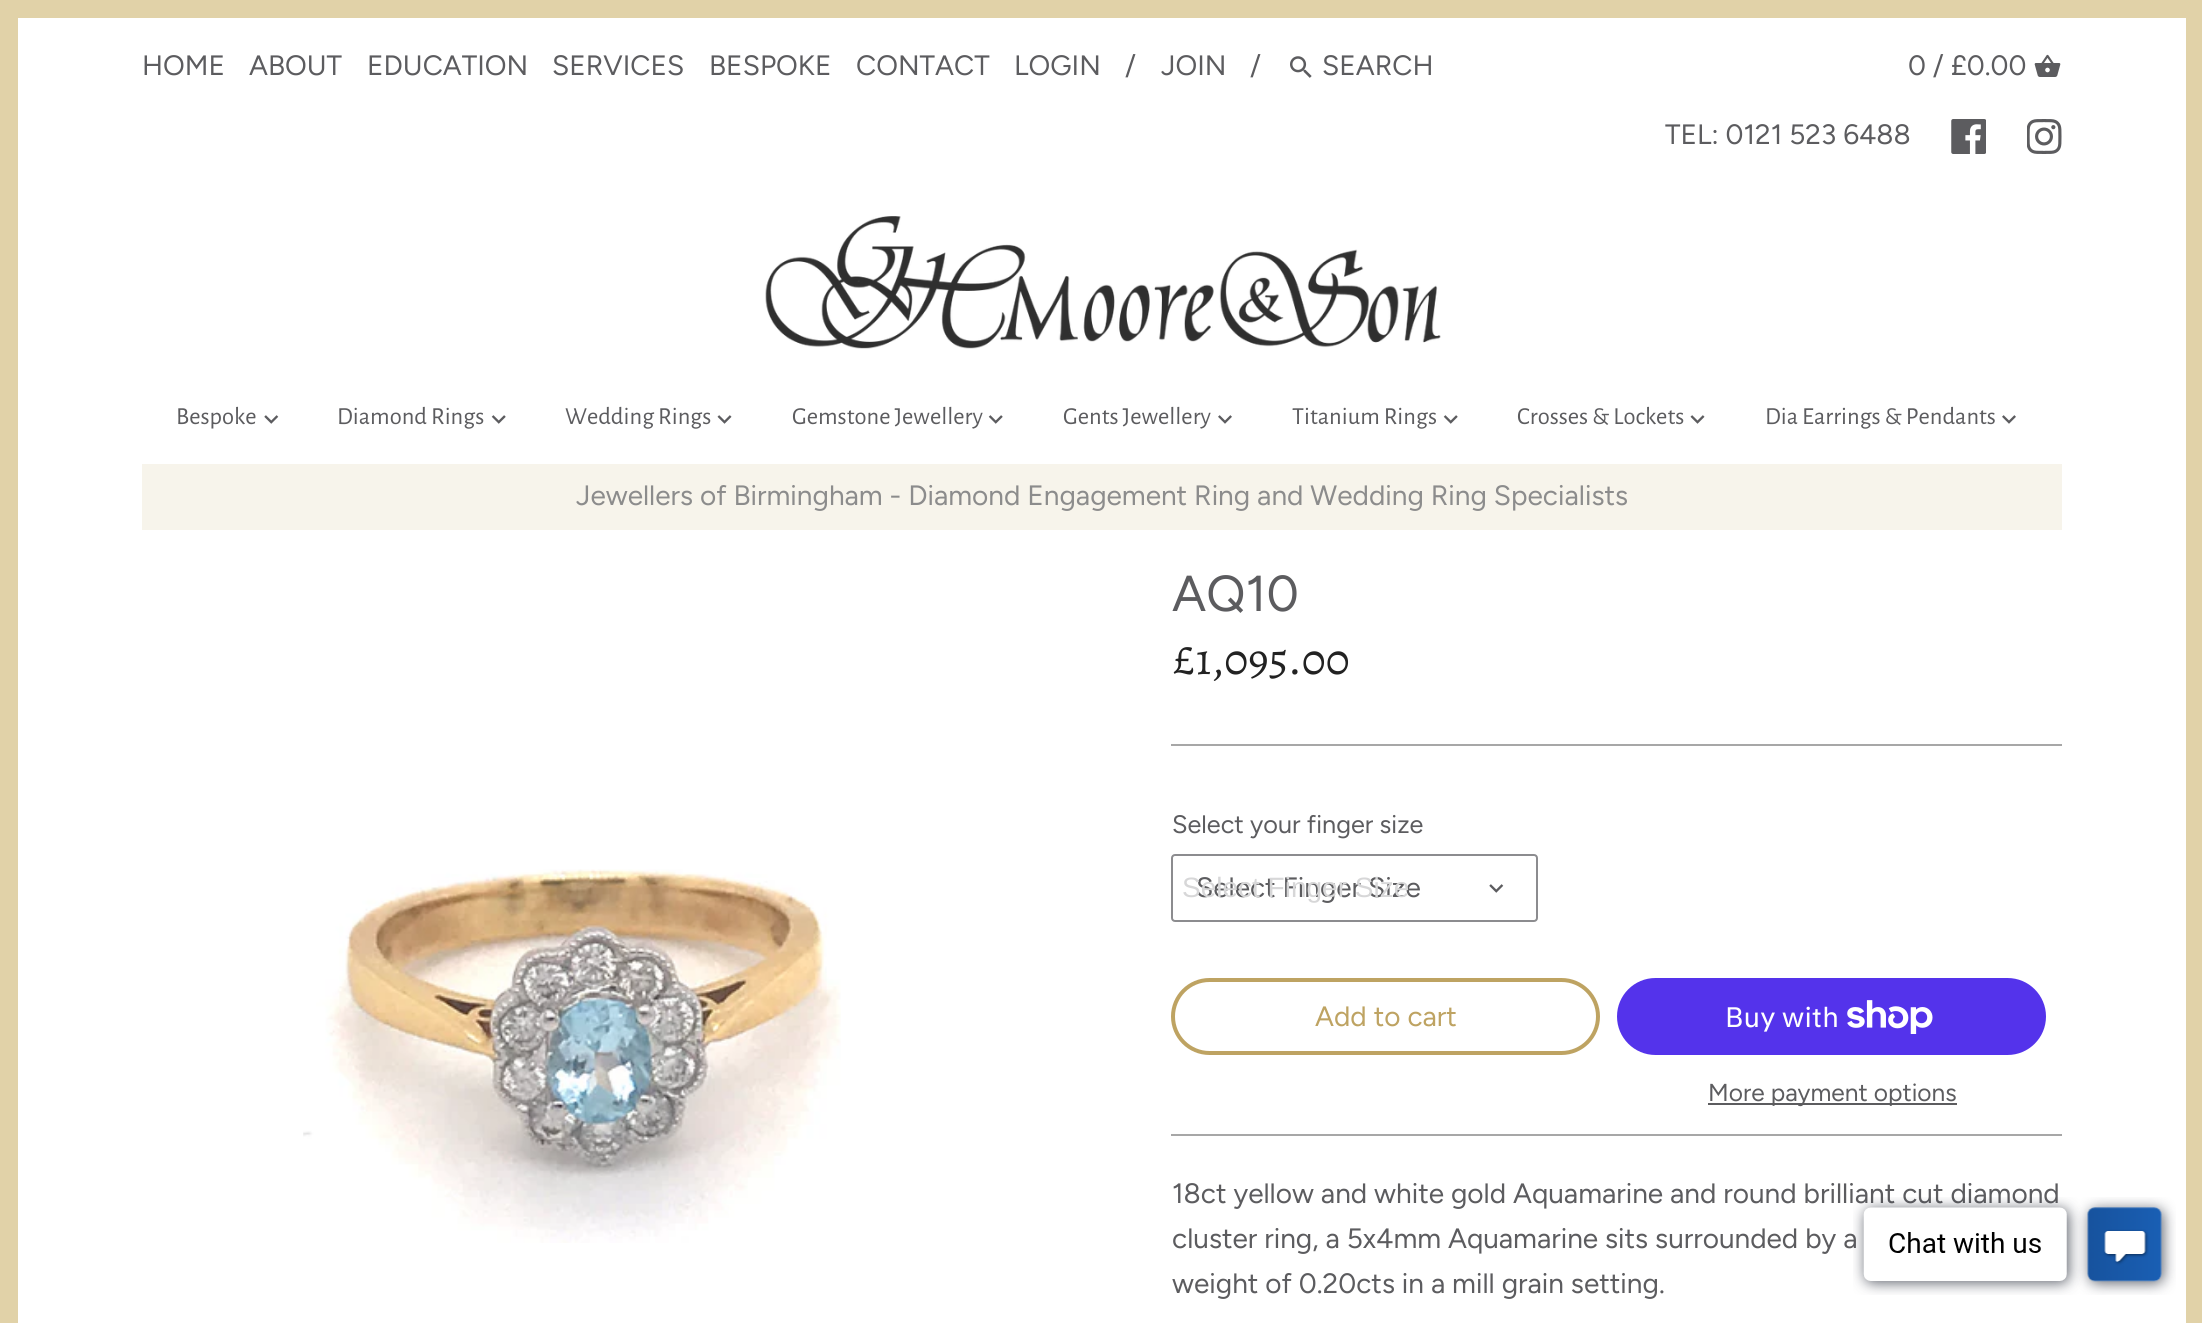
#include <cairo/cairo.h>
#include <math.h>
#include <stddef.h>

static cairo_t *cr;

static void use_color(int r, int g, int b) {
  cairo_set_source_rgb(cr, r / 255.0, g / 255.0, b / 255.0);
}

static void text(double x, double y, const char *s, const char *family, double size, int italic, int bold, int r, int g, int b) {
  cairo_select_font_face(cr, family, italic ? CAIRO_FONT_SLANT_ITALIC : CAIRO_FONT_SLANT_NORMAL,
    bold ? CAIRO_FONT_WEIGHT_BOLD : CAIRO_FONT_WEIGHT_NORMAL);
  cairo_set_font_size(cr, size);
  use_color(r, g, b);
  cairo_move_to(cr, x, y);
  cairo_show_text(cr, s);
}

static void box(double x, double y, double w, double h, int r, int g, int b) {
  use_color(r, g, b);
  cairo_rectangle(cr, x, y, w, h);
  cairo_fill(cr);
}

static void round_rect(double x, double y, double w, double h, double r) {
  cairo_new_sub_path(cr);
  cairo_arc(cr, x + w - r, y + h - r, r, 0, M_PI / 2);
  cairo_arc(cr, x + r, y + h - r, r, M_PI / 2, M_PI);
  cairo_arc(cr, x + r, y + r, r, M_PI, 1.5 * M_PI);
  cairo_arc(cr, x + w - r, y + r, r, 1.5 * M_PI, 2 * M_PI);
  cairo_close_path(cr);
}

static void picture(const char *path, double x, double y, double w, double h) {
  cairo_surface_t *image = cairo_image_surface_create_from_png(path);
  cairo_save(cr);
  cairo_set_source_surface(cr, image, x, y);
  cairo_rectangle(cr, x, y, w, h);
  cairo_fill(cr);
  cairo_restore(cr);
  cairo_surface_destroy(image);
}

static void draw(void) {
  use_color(225, 210, 168);
  cairo_paint(cr);
  box(18, 18, 2168, 1305, 255, 255, 255);
  picture("img_01.png", 1290, 56, 22, 22);
  picture("img_02.png", 2034, 54, 27, 23);
  picture("img_03.png", 1951, 119, 35, 35);
  picture("img_04.png", 2027, 119, 35, 35);
  picture("img_05.png", 765, 216, 676, 133);
  picture("img_06.png", 264, 415, 15, 9);
  picture("img_07.png", 491, 415, 15, 9);
  picture("img_08.png", 717, 415, 15, 9);
  picture("img_07.png", 988, 415, 15, 9);
  picture("img_09.png", 1218, 415, 14, 9);
  picture("img_07.png", 1443, 415, 15, 9);
  picture("img_08.png", 1690, 415, 15, 9);
  picture("img_09.png", 2002, 415, 14, 9);
  box(142, 464, 1920, 66, 247, 244, 235);
  picture("img_10.png", 303, 869, 538, 374);
  box(1171, 744, 891, 2, 167, 167, 167);
  box(1171, 1134, 891, 2, 167, 167, 167);
  round_rect(1172, 855, 365, 66, 3);
  use_color(140, 140, 143);
  cairo_stroke(cr);
  picture("img_06.png", 1489, 884, 15, 9);
  round_rect(1173, 980, 425, 73, 36.5);
  use_color(190, 163, 98);
  cairo_set_line_width(cr, 4);
  cairo_stroke(cr);
  use_color(84, 51, 235);
  round_rect(1617, 978, 429, 77, 38.5);
  cairo_fill(cr);
  picture("img_11.png", 1847, 1000, 86, 34);
  box(1708, 1103, 249, 2, 92, 92, 95);
  text(142, 75, "HOME", "Figtree", 28, 0, 0, 92, 92, 95);
  text(249, 75, "ABOUT", "Figtree", 28, 0, 0, 92, 92, 95);
  text(367, 75, "EDUCATION", "Figtree", 28, 0, 0, 92, 92, 95);
  text(552, 75, "SERVICES", "Figtree", 28, 0, 0, 92, 92, 95);
  text(709, 75, "BESPOKE", "Figtree", 28, 0, 0, 92, 92, 95);
  text(856, 75, "CONTACT", "Figtree", 28, 0, 0, 92, 92, 95);
  text(1014, 75, "LOGIN", "Figtree", 28, 0, 0, 92, 92, 95);
  text(1125, 75, "/", "Figtree", 28, 0, 0, 92, 92, 95);
  text(1161, 75, "JOIN", "Figtree", 28, 0, 0, 92, 92, 95);
  text(1250, 75, "/", "Figtree", 28, 0, 0, 92, 92, 95);
  text(1322, 75, "SEARCH", "Figtree", 28, 0, 0, 92, 92, 95);
  text(1908, 75, "0 / £0.00", "Figtree", 28, 0, 0, 92, 92, 95);
  text(1665, 144, "TEL: 0121 523 6488", "Figtree", 28, 0, 0, 92, 92, 95);
  text(176, 424, "Bespoke", "Alegreya Sans", 24.5, 0, 0, 92, 92, 95);
  text(337, 424, "Diamond Rings", "Alegreya Sans", 24.5, 0, 0, 92, 92, 95);
  text(565, 424, "Wedding Rings", "Alegreya Sans", 24.5, 0, 0, 92, 92, 95);
  text(792, 424, "Gemstone Jewellery", "Alegreya Sans", 24.5, 0, 0, 92, 92, 95);
  text(1063, 424, "Gents Jewellery", "Alegreya Sans", 24.5, 0, 0, 92, 92, 95);
  text(1292, 424, "Titanium Rings", "Alegreya Sans", 24.5, 0, 0, 92, 92, 95);
  text(1517, 424, "Crosses & Lockets", "Alegreya Sans", 24.5, 0, 0, 92, 92, 95);
  text(1765, 424, "Dia Earrings & Pendants", "Alegreya Sans", 24.5, 0, 0, 92, 92, 95);
  text(576, 505, "Jewellers of Birmingham - Diamond Engagement Ring and Wedding Ring Specialists", "Figtree", 28, 0, 0, 140, 140, 140);
  text(1172, 611, "AQ10", "Figtree", 50.5, 0, 0, 92, 92, 95);
  text(1172, 674, "£1,095.00", "Alegreya", 45, 0, 0, 34, 34, 34);
  text(1172, 833, "Select your finger size", "Figtree", 25.25, 0, 0, 92, 92, 95);
  text(1196, 897, "Select Finger Size", "Figtree", 28, 0, 0, 92, 92, 95);
  text(1182, 897, "Select Finger Size", "Liberation Sans", 28, 0, 0, 215, 215, 216);
  text(1315, 1026, "Add to cart", "Figtree", 28, 0, 0, 190, 163, 98);
  text(1725, 1027, "Buy with", "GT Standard", 28, 0, 0, 255, 255, 255);
  text(1708, 1101, "More payment options", "Figtree", 24.5, 0, 0, 92, 92, 95);
  text(1172, 1203, "18ct yellow and white gold Aquamarine and round brilliant cut diamond", "Figtree", 28, 0, 0, 92, 92, 95);
  text(1172, 1248, "cluster ring, a 5x4mm Aquamarine sits surrounded by a", "Figtree", 28, 0, 0, 92, 92, 95);
  text(1172, 1293, "weight of 0.20cts in a mill grain setting.", "Figtree", 28, 0, 0, 92, 92, 95);
  picture("img_12.png", 1853, 1197, 323, 98);
}

int main(void) {
  cairo_surface_t *surface = cairo_image_surface_create(CAIRO_FORMAT_RGB24, 2202, 1323);
  cr = cairo_create(surface);
  cairo_font_options_t *options = cairo_font_options_create();
  cairo_font_options_set_hint_metrics(options, CAIRO_HINT_METRICS_OFF);
  cairo_font_options_set_hint_style(options, CAIRO_HINT_STYLE_NONE);
  cairo_set_font_options(cr, options);
  cairo_set_miter_limit(cr, 4);
  draw();
  cairo_surface_write_to_png(surface, "out.png");
  cairo_font_options_destroy(options);
  cairo_destroy(cr);
  cairo_surface_destroy(surface);
  return 0;
}
